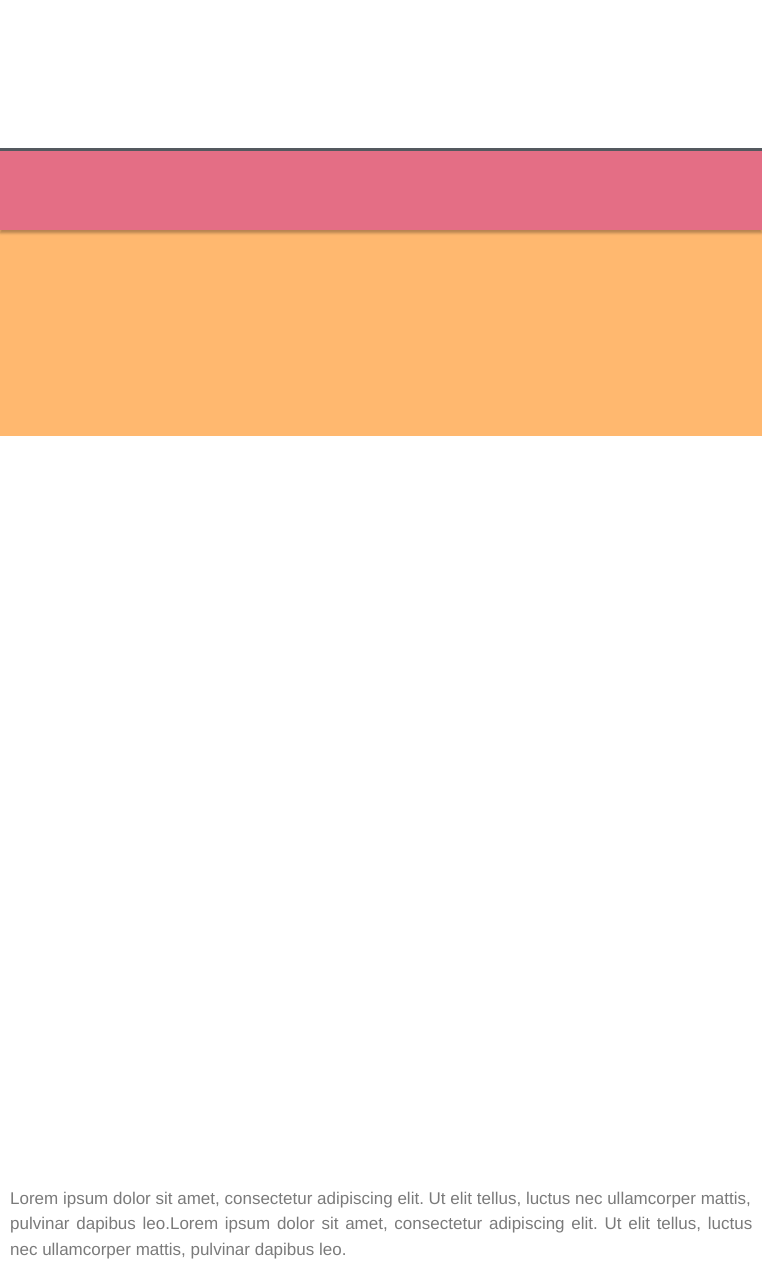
#include <cairo/cairo.h>
#include <math.h>
#include <stddef.h>

static cairo_t *cr;

static void use_color(int r, int g, int b) {
  cairo_set_source_rgb(cr, r / 255.0, g / 255.0, b / 255.0);
}

static void text(double x, double y, const char *s, const char *family, double size, int italic, int bold, int r, int g, int b) {
  cairo_select_font_face(cr, family, italic ? CAIRO_FONT_SLANT_ITALIC : CAIRO_FONT_SLANT_NORMAL,
    bold ? CAIRO_FONT_WEIGHT_BOLD : CAIRO_FONT_WEIGHT_NORMAL);
  cairo_set_font_size(cr, size);
  use_color(r, g, b);
  cairo_move_to(cr, x, y);
  cairo_show_text(cr, s);
}

static void spaced_text(double x, double y, const char *s, double letter, double word) {
  cairo_move_to(cr, x, y);
  while (*s) {
    char ch[5] = {0};
    int n = 0;
    do ch[n++] = *s++; while ((*s & 0xC0) == 0x80);
    cairo_show_text(cr, ch);
    cairo_rel_move_to(cr, letter + word * (*ch == ' '), 0);
  }
}

static void box(double x, double y, double w, double h, int r, int g, int b) {
  use_color(r, g, b);
  cairo_rectangle(cr, x, y, w, h);
  cairo_fill(cr);
}

static void round_rect(double x, double y, double w, double h, double r) {
  cairo_new_sub_path(cr);
  cairo_arc(cr, x + w - r, y + h - r, r, 0, M_PI / 2);
  cairo_arc(cr, x + r, y + h - r, r, M_PI / 2, M_PI);
  cairo_arc(cr, x + r, y + r, r, M_PI, 1.5 * M_PI);
  cairo_arc(cr, x + w - r, y + r, r, 1.5 * M_PI, 2 * M_PI);
  cairo_close_path(cr);
}

static void shadow(double x, double y, double w, double h, double r, double blur, double alpha) {
  cairo_push_group_with_content(cr, CAIRO_CONTENT_ALPHA);
  cairo_set_operator(cr, CAIRO_OPERATOR_SOURCE);
  for (int i = 15; i >= -15 && fmin(w, h) + blur * i / 3 > 0; i -= 2) {
    double e = blur * i / 6;
    cairo_set_source_rgba(cr, 0, 0, 0, alpha * erfc((i - 1) / 8.5) / 2);
    round_rect(x - e, y - e, w + 2 * e, h + 2 * e, fmax(0, fmin(r + e + blur * .6, fmin(w, h) / 2 + e)));
    cairo_fill(cr);
  }
  cairo_pattern_t *soft = cairo_pop_group(cr);
  cairo_mask(cr, soft);
  cairo_pattern_destroy(soft);
}

static void draw(void) {
  use_color(255, 255, 255);
  cairo_paint(cr);
  box(0, 230, 762, 206, 255, 184, 111);
  use_color(0, 0, 0);
  shadow(0, 151, 762, 82, 0, 1.5, 0.29);
  box(0, 151, 762, 79, 228, 110, 133);
  box(0, 148, 762, 3, 84, 89, 95);
  text(10, 1204, "Lorem ipsum dolor sit amet, consectetur adipiscing elit. Ut elit tellus, luctus nec ullamcorper mattis,", "Liberation Sans", 17, 0, 0, 122, 122, 122);
  spaced_text(10, 1229, "pulvinar dapibus leo.Lorem ipsum dolor sit amet, consectetur adipiscing elit. Ut elit tellus, luctus", 0, 2);
  text(10, 1255, "nec ullamcorper mattis, pulvinar dapibus leo.", "Liberation Sans", 17, 0, 0, 122, 122, 122);
}

int main(void) {
  cairo_surface_t *surface = cairo_image_surface_create(CAIRO_FORMAT_RGB24, 762, 1280);
  cr = cairo_create(surface);
  cairo_font_options_t *options = cairo_font_options_create();
  cairo_font_options_set_hint_metrics(options, CAIRO_HINT_METRICS_OFF);
  cairo_font_options_set_hint_style(options, CAIRO_HINT_STYLE_NONE);
  cairo_set_font_options(cr, options);
  cairo_set_miter_limit(cr, 4);
  draw();
  cairo_surface_write_to_png(surface, "out.png");
  cairo_font_options_destroy(options);
  cairo_destroy(cr);
  cairo_surface_destroy(surface);
  return 0;
}
